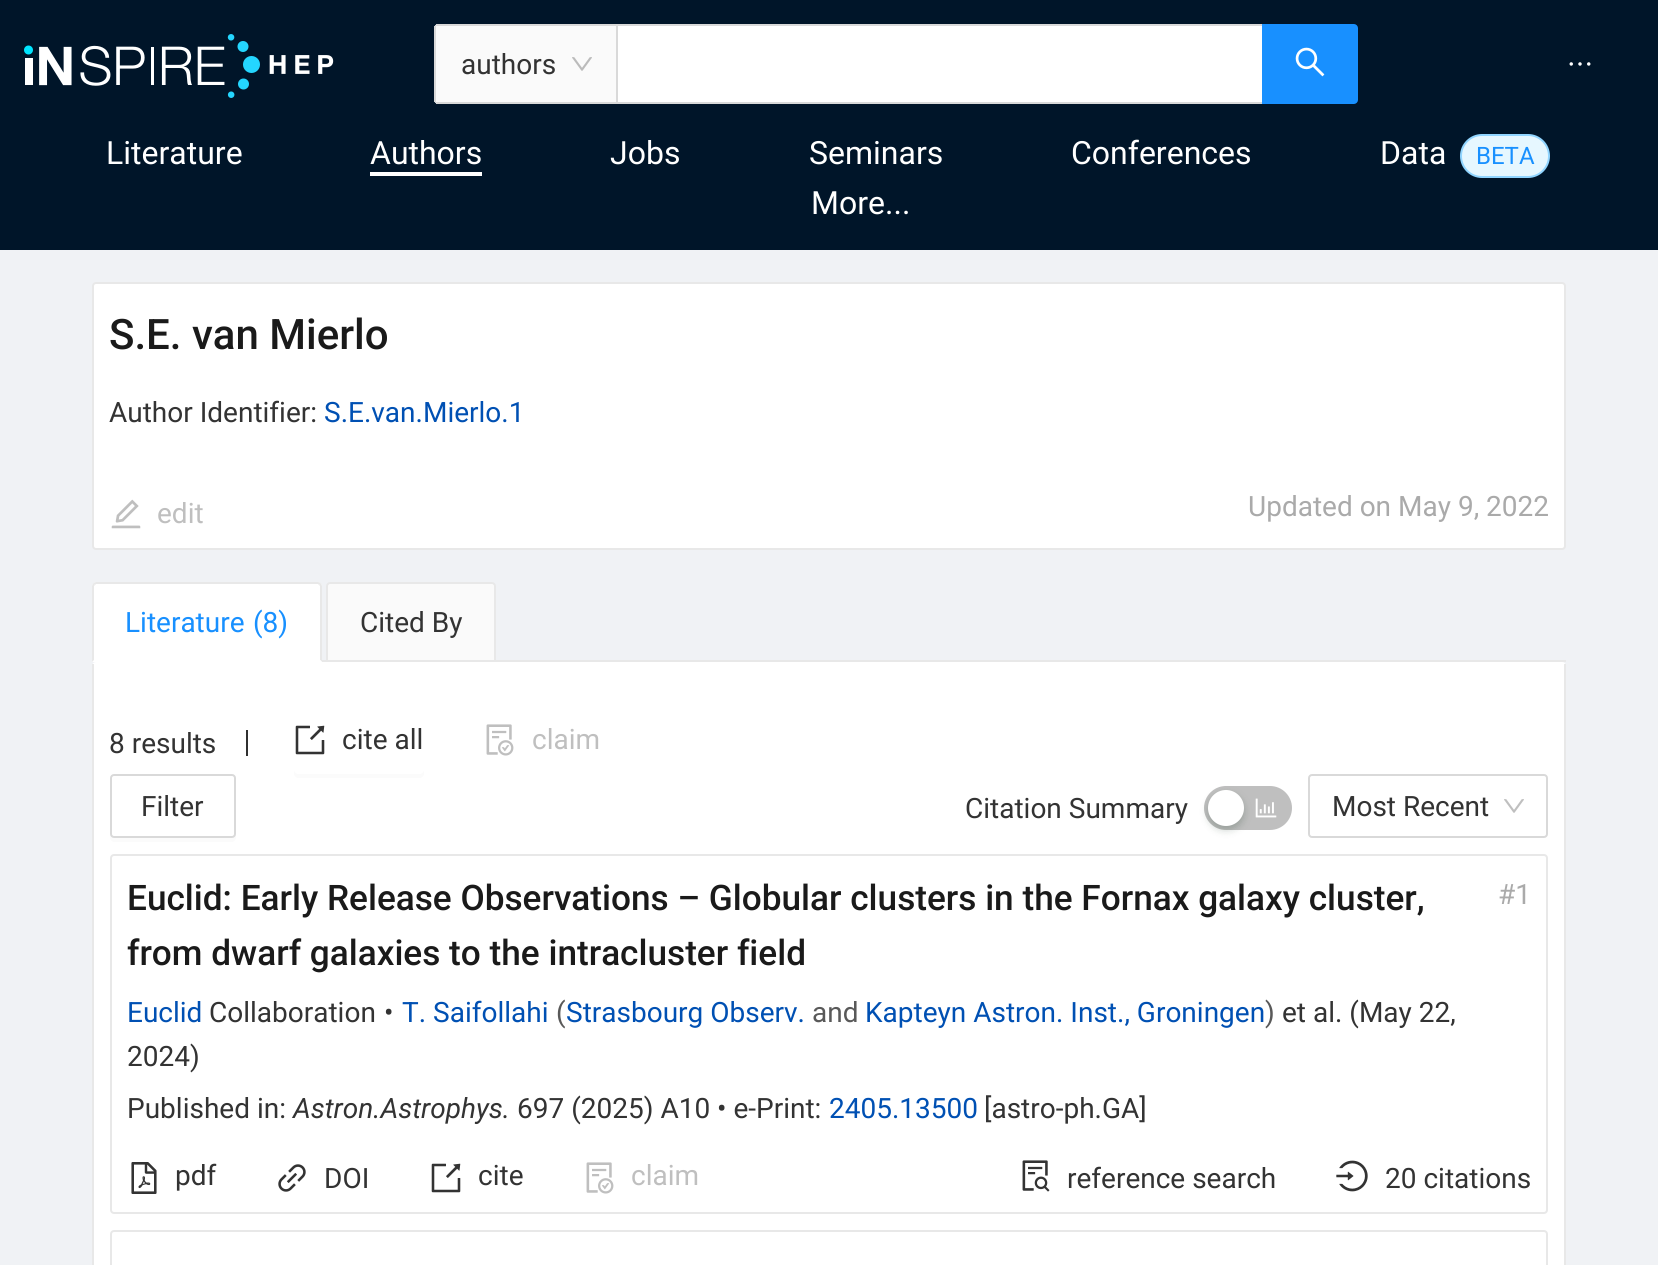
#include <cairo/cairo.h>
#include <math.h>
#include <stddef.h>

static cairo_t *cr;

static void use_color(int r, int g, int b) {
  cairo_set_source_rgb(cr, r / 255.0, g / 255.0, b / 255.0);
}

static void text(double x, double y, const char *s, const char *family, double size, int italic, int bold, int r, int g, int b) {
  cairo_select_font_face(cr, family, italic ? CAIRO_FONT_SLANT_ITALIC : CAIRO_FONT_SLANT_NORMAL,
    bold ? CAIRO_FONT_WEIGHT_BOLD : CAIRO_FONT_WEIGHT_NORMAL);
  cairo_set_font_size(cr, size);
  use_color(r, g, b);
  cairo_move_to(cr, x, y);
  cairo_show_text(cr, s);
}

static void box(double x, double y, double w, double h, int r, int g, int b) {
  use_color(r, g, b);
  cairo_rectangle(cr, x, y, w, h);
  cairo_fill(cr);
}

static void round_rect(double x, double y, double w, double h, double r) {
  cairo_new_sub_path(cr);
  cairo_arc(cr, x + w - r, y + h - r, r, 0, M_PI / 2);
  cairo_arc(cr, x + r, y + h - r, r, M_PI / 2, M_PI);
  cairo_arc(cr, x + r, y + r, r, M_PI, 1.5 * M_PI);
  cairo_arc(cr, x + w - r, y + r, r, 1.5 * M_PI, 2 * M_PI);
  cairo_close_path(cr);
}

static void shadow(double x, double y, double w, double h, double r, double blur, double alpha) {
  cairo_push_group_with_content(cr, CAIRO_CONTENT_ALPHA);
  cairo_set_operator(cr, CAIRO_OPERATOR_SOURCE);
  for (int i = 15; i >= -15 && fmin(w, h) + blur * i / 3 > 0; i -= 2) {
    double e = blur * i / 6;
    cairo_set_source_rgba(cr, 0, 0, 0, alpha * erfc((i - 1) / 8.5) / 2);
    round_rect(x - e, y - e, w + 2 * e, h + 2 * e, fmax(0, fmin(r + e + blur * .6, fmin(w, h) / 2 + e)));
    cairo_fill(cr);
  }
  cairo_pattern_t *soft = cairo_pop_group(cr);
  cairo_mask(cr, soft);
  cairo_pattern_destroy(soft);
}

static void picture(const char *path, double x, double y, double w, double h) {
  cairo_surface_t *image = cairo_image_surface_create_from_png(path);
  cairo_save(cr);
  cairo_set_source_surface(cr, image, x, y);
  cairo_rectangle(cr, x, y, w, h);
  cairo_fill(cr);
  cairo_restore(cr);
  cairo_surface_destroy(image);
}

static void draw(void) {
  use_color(240, 242, 245);
  cairo_paint(cr);
  box(0, 0, 1658, 250, 0, 21, 41);
  picture("img_01.png", 24, 34, 310, 64);
  use_color(250, 250, 250);
  cairo_new_path(cr);
  cairo_move_to(cr, 438, 24);
  cairo_line_to(cr, 616, 24);
  cairo_line_to(cr, 616, 104);
  cairo_line_to(cr, 438, 104);
  cairo_curve_to(cr, 436, 104, 434, 102, 434, 100);
  cairo_line_to(cr, 434, 28);
  cairo_curve_to(cr, 434, 26, 436, 24, 438, 24);
  cairo_close_path(cr);
  cairo_fill(cr);
  box(436, 24, 180, 2, 217, 217, 217);
  box(436, 102, 180, 2, 217, 217, 217);
  box(434, 26, 2, 76, 217, 217, 217);
  picture("img_02.png", 572, 57, 20, 14);
  use_color(255, 255, 255);
  cairo_rectangle(cr, 617, 25, 646, 78);
  cairo_fill_preserve(cr);
  use_color(217, 217, 217);
  cairo_stroke(cr);
  use_color(24, 144, 255);
  cairo_new_path(cr);
  cairo_move_to(cr, 1263, 25);
  cairo_line_to(cr, 1354, 25);
  cairo_curve_to(cr, 1355.5, 25, 1357, 26.5, 1357, 28);
  cairo_line_to(cr, 1357, 100);
  cairo_curve_to(cr, 1357, 101.5, 1355.5, 103, 1354, 103);
  cairo_line_to(cr, 1263, 103);
  cairo_close_path(cr);
  cairo_fill_preserve(cr);
  cairo_stroke(cr);
  picture("img_03.png", 1295, 47, 30, 30);
  picture("img_04.png", 1569, 62, 22, 4);
  box(370, 172, 112, 4, 255, 255, 255);
  use_color(230, 247, 255);
  round_rect(1461, 135, 88, 42, 21);
  cairo_fill_preserve(cr);
  use_color(145, 213, 255);
  cairo_stroke(cr);
  use_color(255, 255, 255);
  round_rect(93, 283, 1472, 266, 3);
  cairo_fill_preserve(cr);
  use_color(232, 232, 232);
  cairo_stroke(cr);
  picture("img_05.png", 111, 499, 30, 30);
  use_color(255, 255, 255);
  cairo_new_path(cr);
  cairo_move_to(cr, 96, 582);
  cairo_line_to(cr, 318, 582);
  cairo_curve_to(cr, 320, 582, 322, 584, 322, 586);
  cairo_line_to(cr, 322, 662);
  cairo_line_to(cr, 92, 662);
  cairo_line_to(cr, 92, 586);
  cairo_curve_to(cr, 92, 584, 94, 582, 96, 582);
  cairo_close_path(cr);
  cairo_fill(cr);
  use_color(232, 232, 232);
  cairo_new_path(cr);
  cairo_move_to(cr, 96, 582);
  cairo_line_to(cr, 93, 583);
  cairo_line_to(cr, 95, 585);
  cairo_line_to(cr, 96, 584);
  cairo_line_to(cr, 318, 584);
  cairo_line_to(cr, 319, 585);
  cairo_line_to(cr, 321, 583);
  cairo_line_to(cr, 318, 582);
  cairo_close_path(cr);
  cairo_fill(cr);
  cairo_new_path(cr);
  cairo_move_to(cr, 322, 662);
  cairo_line_to(cr, 322, 586);
  cairo_line_to(cr, 321, 583);
  cairo_line_to(cr, 319, 585);
  cairo_line_to(cr, 320, 586);
  cairo_line_to(cr, 320, 660);
  cairo_close_path(cr);
  cairo_fill(cr);
  use_color(255, 255, 255);
  cairo_new_path(cr);
  cairo_move_to(cr, 322, 662);
  cairo_line_to(cr, 320, 660);
  cairo_line_to(cr, 94, 660);
  cairo_line_to(cr, 92, 662);
  cairo_close_path(cr);
  cairo_fill(cr);
  use_color(232, 232, 232);
  cairo_new_path(cr);
  cairo_move_to(cr, 92, 662);
  cairo_line_to(cr, 94, 660);
  cairo_line_to(cr, 94, 586);
  cairo_line_to(cr, 95, 585);
  cairo_line_to(cr, 93, 583);
  cairo_line_to(cr, 92, 586);
  cairo_close_path(cr);
  cairo_fill(cr);
  box(322, 660, 1244, 2, 232, 232, 232);
  use_color(250, 250, 250);
  cairo_new_path(cr);
  cairo_move_to(cr, 330, 583);
  cairo_line_to(cr, 492, 583);
  cairo_curve_to(cr, 493.5, 583, 495, 584.5, 495, 586);
  cairo_line_to(cr, 495, 661);
  cairo_line_to(cr, 327, 661);
  cairo_line_to(cr, 327, 586);
  cairo_curve_to(cr, 327, 584.5, 328.5, 583, 330, 583);
  cairo_close_path(cr);
  cairo_fill_preserve(cr);
  use_color(232, 232, 232);
  cairo_stroke(cr);
  use_color(255, 255, 255);
  round_rect(92, 662, 1474, 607, 4);
  cairo_fill(cr);
  box(1564, 664, 2, 601, 232, 232, 232);
  box(92, 664, 2, 601, 232, 232, 232);
  box(246, 730, 2, 26, 48, 48, 48);
  use_color(251, 251, 251);
  cairo_new_path(cr);
  cairo_move_to(cr, 294, 770);
  cairo_line_to(cr, 294, 774);
  cairo_curve_to(cr, 294, 776, 296, 778, 298, 778);
  cairo_line_to(cr, 420, 778);
  cairo_curve_to(cr, 422, 778, 424, 776, 424, 774);
  cairo_line_to(cr, 424, 770);
  cairo_curve_to(cr, 424, 772, 422, 774, 420, 774);
  cairo_line_to(cr, 298, 774);
  cairo_curve_to(cr, 296, 774, 294, 772, 294, 770);
  cairo_close_path(cr);
  cairo_fill(cr);
  picture("img_06.png", 295, 725, 30, 30);
  picture("img_07.png", 486, 724, 28, 32);
  cairo_new_path(cr);
  cairo_move_to(cr, 110, 834);
  cairo_line_to(cr, 110, 838);
  cairo_curve_to(cr, 110, 840, 112, 842, 114, 842);
  cairo_line_to(cr, 232, 842);
  cairo_curve_to(cr, 234, 842, 236, 840, 236, 838);
  cairo_line_to(cr, 236, 834);
  cairo_curve_to(cr, 236, 836, 234, 838, 232, 838);
  cairo_line_to(cr, 114, 838);
  cairo_curve_to(cr, 112, 838, 110, 836, 110, 834);
  cairo_close_path(cr);
  cairo_fill(cr);
  round_rect(111, 775, 124, 62, 3);
  use_color(217, 217, 217);
  cairo_stroke(cr);
  use_color(191, 191, 191);
  round_rect(1204, 786, 88, 44, 22);
  cairo_fill(cr);
  picture("img_08.png", 1255, 798, 22, 20);
  use_color(0, 35, 11);
  shadow(1208, 794, 36, 36, 18, 4, 0.2);
  use_color(255, 255, 255);
  cairo_arc(cr, 1226, 808, 18, 0, 2 * M_PI);
  cairo_fill(cr);
  round_rect(1309, 775, 238, 62, 3);
  use_color(217, 217, 217);
  cairo_stroke(cr);
  picture("img_09.png", 1504, 799, 20, 14);
  round_rect(111, 855, 1436, 358, 3);
  use_color(232, 232, 232);
  cairo_stroke(cr);
  picture("img_10.png", 131, 1162, 26, 32);
  picture("img_11.png", 278, 1164, 28, 28);
  picture("img_06.png", 431, 1163, 30, 30);
  picture("img_07.png", 586, 1162, 28, 32);
  picture("img_12.png", 1022, 1160, 28, 32);
  picture("img_13.png", 1336, 1160, 32, 32);
  round_rect(111, 1231, 1436, 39, 3);
  cairo_stroke(cr);
  text(461, 74, "authors", "Roboto", 28, 0, 0, 51, 51, 51);
  text(106, 164, "Literature", "Roboto", 32, 0, 0, 255, 255, 255);
  text(370, 164, "Authors", "Roboto", 32, 0, 0, 255, 255, 255);
  text(610, 164, "Jobs", "Roboto", 32, 0, 0, 255, 255, 255);
  text(809, 164, "Seminars", "Roboto", 32, 0, 0, 255, 255, 255);
  text(1071, 164, "Conferences", "Roboto", 32, 0, 0, 255, 255, 255);
  text(1380, 164, "Data", "Roboto", 32, 0, 0, 255, 255, 255);
  text(1476, 164, "BETA", "Roboto", 24, 0, 0, 24, 144, 255);
  text(811, 214, "More...", "Roboto", 32, 0, 0, 255, 255, 255);
  text(109, 349, "S.E. van Mierlo", "Roboto Medium", 42, 0, 0, 26, 26, 26);
  text(109, 422, "Author Identifier:", "Roboto", 28, 0, 0, 51, 51, 51);
  text(324, 422, "S.E.van.Mierlo.1", "Roboto", 28, 0, 0, 0, 80, 179);
  text(157, 523, "edit", "Roboto", 28, 0, 0, 191, 191, 191);
  text(1248, 516, "Updated on May 9, 2022", "Roboto", 28, 0, 0, 170, 170, 170);
  text(125, 632, "Literature", "Roboto", 28, 0, 0, 24, 144, 255);
  text(253, 632, "(8)", "Roboto", 28, 0, 0, 24, 144, 255);
  text(360, 632, "Cited By", "Roboto", 28, 0, 0, 51, 51, 51);
  text(109, 753, "8 results", "Roboto", 28, 0, 0, 51, 51, 51);
  text(342, 749, "cite all", "Roboto", 28, 0, 0, 51, 51, 51);
  text(532, 749, "claim", "Roboto", 28, 0, 0, 191, 191, 191);
  text(141, 816, "Filter", "Roboto", 28, 0, 0, 51, 51, 51);
  text(965, 818, "Citation Summary", "Roboto", 28, 0, 0, 51, 51, 51);
  text(1332, 816, "Most Recent", "Roboto", 28, 0, 0, 51, 51, 51);
  text(127, 910, "Euclid: Early Release Observations – Globular clusters in the Fornax galaxy cluster,", "Roboto Medium", 35.2, 0, 0, 26, 26, 26);
  text(127, 965, "from dwarf galaxies to the intracluster field", "Roboto Medium", 35.2, 0, 0, 26, 26, 26);
  text(1498, 904, "#1", "Roboto", 28, 0, 0, 170, 170, 170);
  text(127, 1022, "Euclid", "Roboto", 28, 0, 0, 0, 80, 179);
  text(209, 1022, "Collaboration", "Roboto", 28, 0, 0, 51, 51, 51);
  text(384, 1022, "•", "Roboto", 28, 0, 0, 51, 51, 51);
  text(402, 1022, "T. Saifollahi", "Roboto", 28, 0, 0, 0, 80, 179);
  text(556, 1022, "(", "Roboto", 28, 0, 0, 89, 89, 89);
  text(566, 1022, "Strasbourg Observ.", "Roboto", 28, 0, 0, 0, 80, 179);
  text(812, 1022, "and", "Roboto", 28, 0, 0, 89, 89, 89);
  text(865, 1022, "Kapteyn Astron. Inst., Groningen", "Roboto", 28, 0, 0, 0, 80, 179);
  text(1265, 1022, ")", "Roboto", 28, 0, 0, 89, 89, 89);
  text(1282, 1022, "et al. (May 22,", "Roboto", 28, 0, 0, 51, 51, 51);
  text(127, 1066, "2024)", "Roboto", 28, 0, 0, 51, 51, 51);
  text(127, 1118, "Published in:", "Roboto", 28, 0, 0, 51, 51, 51);
  text(293, 1118, "Astron.Astrophys.", "Roboto", 28, 1, 0, 51, 51, 51);
  text(517, 1118, "697 (2025) A10 • e-Print:", "Roboto", 28, 0, 0, 51, 51, 51);
  text(829, 1118, "2405.13500", "Roboto", 28, 0, 0, 0, 80, 179);
  text(984, 1118, "[astro-ph.GA]", "Roboto", 28, 0, 0, 51, 51, 51);
  text(175, 1185, "pdf", "Roboto", 28, 0, 0, 51, 51, 51);
  text(324, 1188, "DOI", "Roboto", 28, 0, 0, 51, 51, 51);
  text(478, 1185, "cite", "Roboto", 28, 0, 0, 51, 51, 51);
  text(631, 1185, "claim", "Roboto", 28, 0, 0, 191, 191, 191);
  text(1067, 1188, "reference search", "Roboto", 28, 0, 0, 51, 51, 51);
  text(1385, 1188, "20 citations", "Roboto", 28, 0, 0, 51, 51, 51);
}

int main(void) {
  cairo_surface_t *surface = cairo_image_surface_create(CAIRO_FORMAT_RGB24, 1658, 1265);
  cr = cairo_create(surface);
  cairo_font_options_t *options = cairo_font_options_create();
  cairo_font_options_set_hint_metrics(options, CAIRO_HINT_METRICS_OFF);
  cairo_font_options_set_hint_style(options, CAIRO_HINT_STYLE_NONE);
  cairo_set_font_options(cr, options);
  cairo_set_miter_limit(cr, 4);
  draw();
  cairo_surface_write_to_png(surface, "out.png");
  cairo_font_options_destroy(options);
  cairo_destroy(cr);
  cairo_surface_destroy(surface);
  return 0;
}
